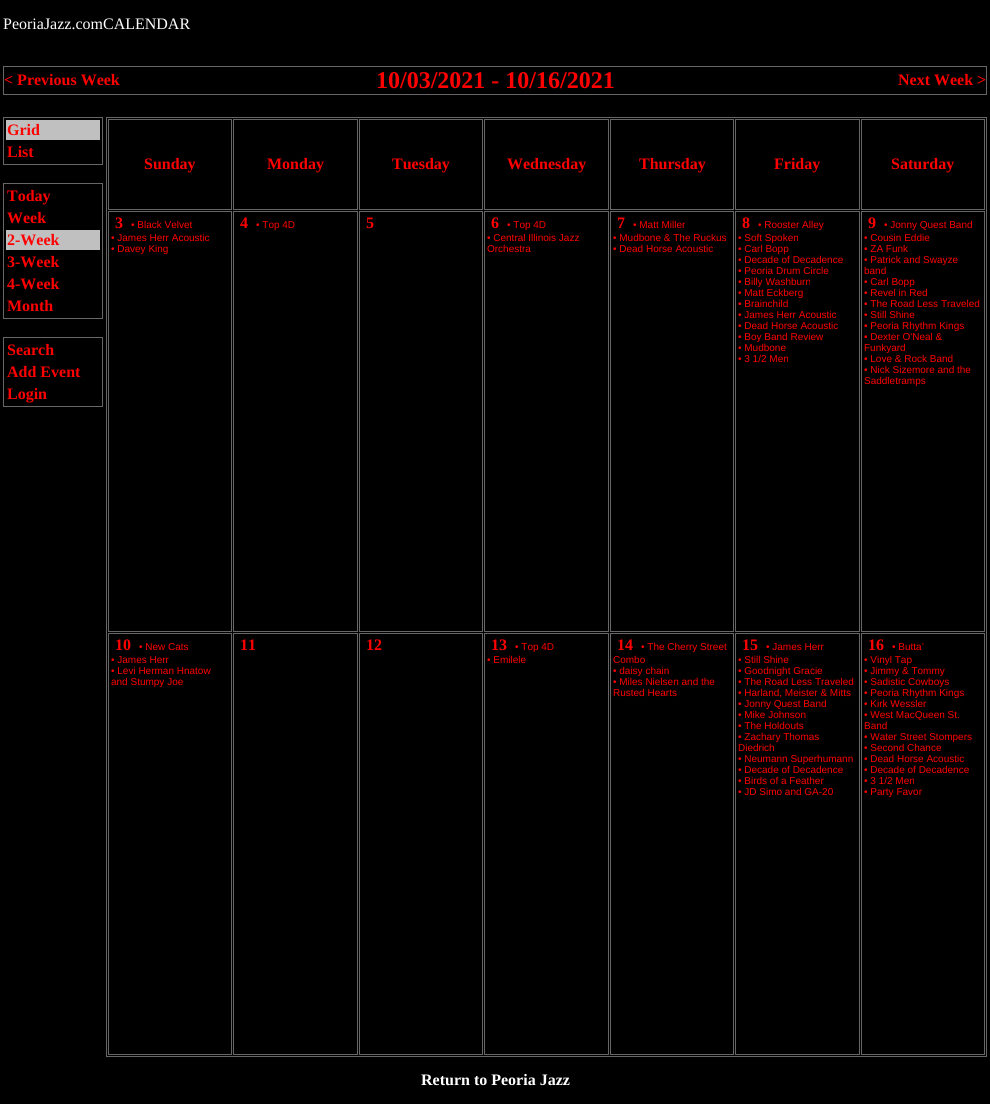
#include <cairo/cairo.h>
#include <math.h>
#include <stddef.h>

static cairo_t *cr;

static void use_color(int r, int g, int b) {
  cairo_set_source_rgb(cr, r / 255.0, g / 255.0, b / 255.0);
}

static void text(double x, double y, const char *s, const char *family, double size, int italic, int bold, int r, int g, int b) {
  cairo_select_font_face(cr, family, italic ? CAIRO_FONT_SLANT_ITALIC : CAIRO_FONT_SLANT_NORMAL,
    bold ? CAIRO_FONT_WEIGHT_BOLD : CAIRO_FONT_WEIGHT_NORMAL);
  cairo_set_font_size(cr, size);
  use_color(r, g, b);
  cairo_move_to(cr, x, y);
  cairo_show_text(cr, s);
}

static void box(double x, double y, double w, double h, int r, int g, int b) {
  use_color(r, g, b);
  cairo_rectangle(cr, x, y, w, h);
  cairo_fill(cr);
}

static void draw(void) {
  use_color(0, 0, 0);
  cairo_paint(cr);
  cairo_rectangle(cr, 3.5, 66.5, 983, 28);
  use_color(102, 102, 102);
  cairo_set_line_width(cr, 1);
  cairo_stroke(cr);
  cairo_rectangle(cr, 3.5, 117.5, 99, 47);
  cairo_stroke(cr);
  box(6, 120, 94, 20, 192, 192, 192);
  cairo_rectangle(cr, 3.5, 183.5, 99, 135);
  use_color(102, 102, 102);
  cairo_stroke(cr);
  box(6, 230, 94, 20, 192, 192, 192);
  cairo_rectangle(cr, 3.5, 337.5, 99, 69);
  use_color(102, 102, 102);
  cairo_stroke(cr);
  cairo_rectangle(cr, 106.5, 117.5, 880, 939);
  cairo_stroke(cr);
  cairo_rectangle(cr, 108.5, 119.5, 123, 90);
  cairo_stroke(cr);
  cairo_rectangle(cr, 233.5, 119.5, 124, 90);
  cairo_stroke(cr);
  cairo_rectangle(cr, 359.5, 119.5, 123, 90);
  cairo_stroke(cr);
  cairo_rectangle(cr, 484.5, 119.5, 124, 90);
  cairo_stroke(cr);
  cairo_rectangle(cr, 610.5, 119.5, 123, 90);
  cairo_stroke(cr);
  cairo_rectangle(cr, 735.5, 119.5, 124, 90);
  cairo_stroke(cr);
  cairo_rectangle(cr, 861.5, 119.5, 123, 90);
  cairo_stroke(cr);
  cairo_rectangle(cr, 108.5, 211.5, 123, 420);
  cairo_stroke(cr);
  cairo_rectangle(cr, 233.5, 211.5, 124, 420);
  cairo_stroke(cr);
  cairo_rectangle(cr, 359.5, 211.5, 123, 420);
  cairo_stroke(cr);
  cairo_rectangle(cr, 484.5, 211.5, 124, 420);
  cairo_stroke(cr);
  cairo_rectangle(cr, 610.5, 211.5, 123, 420);
  cairo_stroke(cr);
  cairo_rectangle(cr, 735.5, 211.5, 124, 420);
  cairo_stroke(cr);
  cairo_rectangle(cr, 861.5, 211.5, 123, 420);
  cairo_stroke(cr);
  cairo_rectangle(cr, 108.5, 633.5, 123, 421);
  cairo_stroke(cr);
  cairo_rectangle(cr, 233.5, 633.5, 124, 421);
  cairo_stroke(cr);
  cairo_rectangle(cr, 359.5, 633.5, 123, 421);
  cairo_stroke(cr);
  cairo_rectangle(cr, 484.5, 633.5, 124, 421);
  cairo_stroke(cr);
  cairo_rectangle(cr, 610.5, 633.5, 123, 421);
  cairo_stroke(cr);
  cairo_rectangle(cr, 735.5, 633.5, 124, 421);
  cairo_stroke(cr);
  cairo_rectangle(cr, 861.5, 633.5, 123, 421);
  cairo_stroke(cr);
  text(3, 29, "PeoriaJazz.comCALENDAR", "Liberation Serif", 16, 0, 0, 255, 255, 255);
  text(4, 85, "< Previous Week", "Liberation Serif", 16, 0, 1, 255, 0, 0);
  text(376, 88, "10/03/2021 - 10/16/2021", "Liberation Serif", 24, 0, 1, 255, 0, 0);
  text(898, 85, "Next Week >", "Liberation Serif", 16, 0, 1, 255, 0, 0);
  text(7, 135, "Grid", "Liberation Serif", 16, 0, 1, 255, 0, 0);
  text(7, 157, "List", "Liberation Serif", 16, 0, 1, 255, 0, 0);
  text(7, 201, "Today", "Liberation Serif", 16, 0, 1, 255, 0, 0);
  text(7, 223, "Week", "Liberation Serif", 16, 0, 1, 255, 0, 0);
  text(7, 245, "2-Week", "Liberation Serif", 16, 0, 1, 255, 0, 0);
  text(7, 267, "3-Week", "Liberation Serif", 16, 0, 1, 255, 0, 0);
  text(7, 289, "4-Week", "Liberation Serif", 16, 0, 1, 255, 0, 0);
  text(7, 311, "Month", "Liberation Serif", 16, 0, 1, 255, 0, 0);
  text(7, 355, "Search", "Liberation Serif", 16, 0, 1, 255, 0, 0);
  text(7, 377, "Add Event", "Liberation Serif", 16, 0, 1, 255, 0, 0);
  text(7, 399, "Login", "Liberation Serif", 16, 0, 1, 255, 0, 0);
  text(144, 169, "Sunday", "Liberation Serif", 16, 0, 1, 255, 0, 0);
  text(267, 169, "Monday", "Liberation Serif", 16, 0, 1, 255, 0, 0);
  text(392, 169, "Tuesday", "Liberation Serif", 16, 0, 1, 255, 0, 0);
  text(507, 169, "Wednesday", "Liberation Serif", 16, 0, 1, 255, 0, 0);
  text(639, 169, "Thursday", "Liberation Serif", 16, 0, 1, 255, 0, 0);
  text(774, 169, "Friday", "Liberation Serif", 16, 0, 1, 255, 0, 0);
  text(891, 169, "Saturday", "Liberation Serif", 16, 0, 1, 255, 0, 0);
  text(115, 228, "3", "Liberation Serif", 16, 0, 1, 255, 0, 0);
  text(131, 228, "• Black Velvet", "Liberation Sans", 10, 0, 0, 255, 0, 0);
  text(111, 241, "• James Herr Acoustic", "Liberation Sans", 10, 0, 0, 255, 0, 0);
  text(111, 252, "• Davey King", "Liberation Sans", 10, 0, 0, 255, 0, 0);
  text(240, 228, "4", "Liberation Serif", 16, 0, 1, 255, 0, 0);
  text(256, 228, "• Top 4D", "Liberation Sans", 10, 0, 0, 255, 0, 0);
  text(366, 228, "5", "Liberation Serif", 16, 0, 1, 255, 0, 0);
  text(491, 228, "6", "Liberation Serif", 16, 0, 1, 255, 0, 0);
  text(507, 228, "• Top 4D", "Liberation Sans", 10, 0, 0, 255, 0, 0);
  text(487, 241, "• Central Illinois Jazz", "Liberation Sans", 10, 0, 0, 255, 0, 0);
  text(487, 252, "Orchestra", "Liberation Sans", 10, 0, 0, 255, 0, 0);
  text(617, 228, "7", "Liberation Serif", 16, 0, 1, 255, 0, 0);
  text(633, 228, "• Matt Miller", "Liberation Sans", 10, 0, 0, 255, 0, 0);
  text(613, 241, "• Mudbone & The Ruckus", "Liberation Sans", 10, 0, 0, 255, 0, 0);
  text(613, 252, "• Dead Horse Acoustic", "Liberation Sans", 10, 0, 0, 255, 0, 0);
  text(742, 228, "8", "Liberation Serif", 16, 0, 1, 255, 0, 0);
  text(758, 228, "• Rooster Alley", "Liberation Sans", 10, 0, 0, 255, 0, 0);
  text(738, 241, "• Soft Spoken", "Liberation Sans", 10, 0, 0, 255, 0, 0);
  text(738, 252, "• Carl Bopp", "Liberation Sans", 10, 0, 0, 255, 0, 0);
  text(738, 263, "• Decade of Decadence", "Liberation Sans", 10, 0, 0, 255, 0, 0);
  text(738, 274, "• Peoria Drum Circle", "Liberation Sans", 10, 0, 0, 255, 0, 0);
  text(738, 285, "• Billy Washburn", "Liberation Sans", 10, 0, 0, 255, 0, 0);
  text(738, 296, "• Matt Eckberg", "Liberation Sans", 10, 0, 0, 255, 0, 0);
  text(738, 307, "• Brainchild", "Liberation Sans", 10, 0, 0, 255, 0, 0);
  text(738, 318, "• James Herr Acoustic", "Liberation Sans", 10, 0, 0, 255, 0, 0);
  text(738, 329, "• Dead Horse Acoustic", "Liberation Sans", 10, 0, 0, 255, 0, 0);
  text(738, 340, "• Boy Band Review", "Liberation Sans", 10, 0, 0, 255, 0, 0);
  text(738, 351, "• Mudbone", "Liberation Sans", 10, 0, 0, 255, 0, 0);
  text(738, 362, "• 3 1/2 Men", "Liberation Sans", 10, 0, 0, 255, 0, 0);
  text(868, 228, "9", "Liberation Serif", 16, 0, 1, 255, 0, 0);
  text(884, 228, "• Jonny Quest Band", "Liberation Sans", 10, 0, 0, 255, 0, 0);
  text(864, 241, "• Cousin Eddie", "Liberation Sans", 10, 0, 0, 255, 0, 0);
  text(864, 252, "• ZA Funk", "Liberation Sans", 10, 0, 0, 255, 0, 0);
  text(864, 263, "• Patrick and Swayze", "Liberation Sans", 10, 0, 0, 255, 0, 0);
  text(864, 274, "band", "Liberation Sans", 10, 0, 0, 255, 0, 0);
  text(864, 285, "• Carl Bopp", "Liberation Sans", 10, 0, 0, 255, 0, 0);
  text(864, 296, "• Revel in Red", "Liberation Sans", 10, 0, 0, 255, 0, 0);
  text(864, 307, "• The Road Less Traveled", "Liberation Sans", 10, 0, 0, 255, 0, 0);
  text(864, 318, "• Still Shine", "Liberation Sans", 10, 0, 0, 255, 0, 0);
  text(864, 329, "• Peoria Rhythm Kings", "Liberation Sans", 10, 0, 0, 255, 0, 0);
  text(864, 340, "• Dexter O'Neal &", "Liberation Sans", 10, 0, 0, 255, 0, 0);
  text(864, 351, "Funkyard", "Liberation Sans", 10, 0, 0, 255, 0, 0);
  text(864, 362, "• Love & Rock Band", "Liberation Sans", 10, 0, 0, 255, 0, 0);
  text(864, 373, "• Nick Sizemore and the", "Liberation Sans", 10, 0, 0, 255, 0, 0);
  text(864, 384, "Saddletramps", "Liberation Sans", 10, 0, 0, 255, 0, 0);
  text(115, 650, "10", "Liberation Serif", 16, 0, 1, 255, 0, 0);
  text(139, 650, "• New Cats", "Liberation Sans", 10, 0, 0, 255, 0, 0);
  text(111, 663, "• James Herr", "Liberation Sans", 10, 0, 0, 255, 0, 0);
  text(111, 674, "• Levi Herman Hnatow", "Liberation Sans", 10, 0, 0, 255, 0, 0);
  text(111, 685, "and Stumpy Joe", "Liberation Sans", 10, 0, 0, 255, 0, 0);
  text(240, 650, "11", "Liberation Serif", 16, 0, 1, 255, 0, 0);
  text(366, 650, "12", "Liberation Serif", 16, 0, 1, 255, 0, 0);
  text(491, 650, "13", "Liberation Serif", 16, 0, 1, 255, 0, 0);
  text(515, 650, "• Top 4D", "Liberation Sans", 10, 0, 0, 255, 0, 0);
  text(487, 663, "• Emilele", "Liberation Sans", 10, 0, 0, 255, 0, 0);
  text(617, 650, "14", "Liberation Serif", 16, 0, 1, 255, 0, 0);
  text(641, 650, "• The Cherry Street", "Liberation Sans", 10, 0, 0, 255, 0, 0);
  text(613, 663, "Combo", "Liberation Sans", 10, 0, 0, 255, 0, 0);
  text(613, 674, "• daisy chain", "Liberation Sans", 10, 0, 0, 255, 0, 0);
  text(613, 685, "• Miles Nielsen and the", "Liberation Sans", 10, 0, 0, 255, 0, 0);
  text(613, 696, "Rusted Hearts", "Liberation Sans", 10, 0, 0, 255, 0, 0);
  text(742, 650, "15", "Liberation Serif", 16, 0, 1, 255, 0, 0);
  text(766, 650, "• James Herr", "Liberation Sans", 10, 0, 0, 255, 0, 0);
  text(738, 663, "• Still Shine", "Liberation Sans", 10, 0, 0, 255, 0, 0);
  text(738, 674, "• Goodnight Gracie", "Liberation Sans", 10, 0, 0, 255, 0, 0);
  text(738, 685, "• The Road Less Traveled", "Liberation Sans", 10, 0, 0, 255, 0, 0);
  text(738, 696, "• Harland, Meister & Mitts", "Liberation Sans", 10, 0, 0, 255, 0, 0);
  text(738, 707, "• Jonny Quest Band", "Liberation Sans", 10, 0, 0, 255, 0, 0);
  text(738, 718, "• Mike Johnson", "Liberation Sans", 10, 0, 0, 255, 0, 0);
  text(738, 729, "• The Holdouts", "Liberation Sans", 10, 0, 0, 255, 0, 0);
  text(738, 740, "• Zachary Thomas", "Liberation Sans", 10, 0, 0, 255, 0, 0);
  text(738, 751, "Diedrich", "Liberation Sans", 10, 0, 0, 255, 0, 0);
  text(738, 762, "• Neumann Superhumann", "Liberation Sans", 10, 0, 0, 255, 0, 0);
  text(738, 773, "• Decade of Decadence", "Liberation Sans", 10, 0, 0, 255, 0, 0);
  text(738, 784, "• Birds of a Feather", "Liberation Sans", 10, 0, 0, 255, 0, 0);
  text(738, 795, "• JD Simo and GA-20", "Liberation Sans", 10, 0, 0, 255, 0, 0);
  text(868, 650, "16", "Liberation Serif", 16, 0, 1, 255, 0, 0);
  text(892, 650, "• Butta’", "Liberation Sans", 10, 0, 0, 255, 0, 0);
  text(864, 663, "• Vinyl Tap", "Liberation Sans", 10, 0, 0, 255, 0, 0);
  text(864, 674, "• Jimmy & Tommy", "Liberation Sans", 10, 0, 0, 255, 0, 0);
  text(864, 685, "• Sadistic Cowboys", "Liberation Sans", 10, 0, 0, 255, 0, 0);
  text(864, 696, "• Peoria Rhythm Kings", "Liberation Sans", 10, 0, 0, 255, 0, 0);
  text(864, 707, "• Kirk Wessler", "Liberation Sans", 10, 0, 0, 255, 0, 0);
  text(864, 718, "• West MacQueen St.", "Liberation Sans", 10, 0, 0, 255, 0, 0);
  text(864, 729, "Band", "Liberation Sans", 10, 0, 0, 255, 0, 0);
  text(864, 740, "• Water Street Stompers", "Liberation Sans", 10, 0, 0, 255, 0, 0);
  text(864, 751, "• Second Chance", "Liberation Sans", 10, 0, 0, 255, 0, 0);
  text(864, 762, "• Dead Horse Acoustic", "Liberation Sans", 10, 0, 0, 255, 0, 0);
  text(864, 773, "• Decade of Decadence", "Liberation Sans", 10, 0, 0, 255, 0, 0);
  text(864, 784, "• 3 1/2 Men", "Liberation Sans", 10, 0, 0, 255, 0, 0);
  text(864, 795, "• Party Favor", "Liberation Sans", 10, 0, 0, 255, 0, 0);
  text(421, 1085, "Return to Peoria Jazz", "Liberation Serif", 16, 0, 1, 255, 255, 255);
}

int main(void) {
  cairo_surface_t *surface = cairo_image_surface_create(CAIRO_FORMAT_RGB24, 990, 1104);
  cr = cairo_create(surface);
  cairo_font_options_t *options = cairo_font_options_create();
  cairo_font_options_set_hint_metrics(options, CAIRO_HINT_METRICS_OFF);
  cairo_font_options_set_hint_style(options, CAIRO_HINT_STYLE_NONE);
  cairo_set_font_options(cr, options);
  cairo_set_miter_limit(cr, 4);
  draw();
  cairo_surface_write_to_png(surface, "out.png");
  cairo_font_options_destroy(options);
  cairo_destroy(cr);
  cairo_surface_destroy(surface);
  return 0;
}
